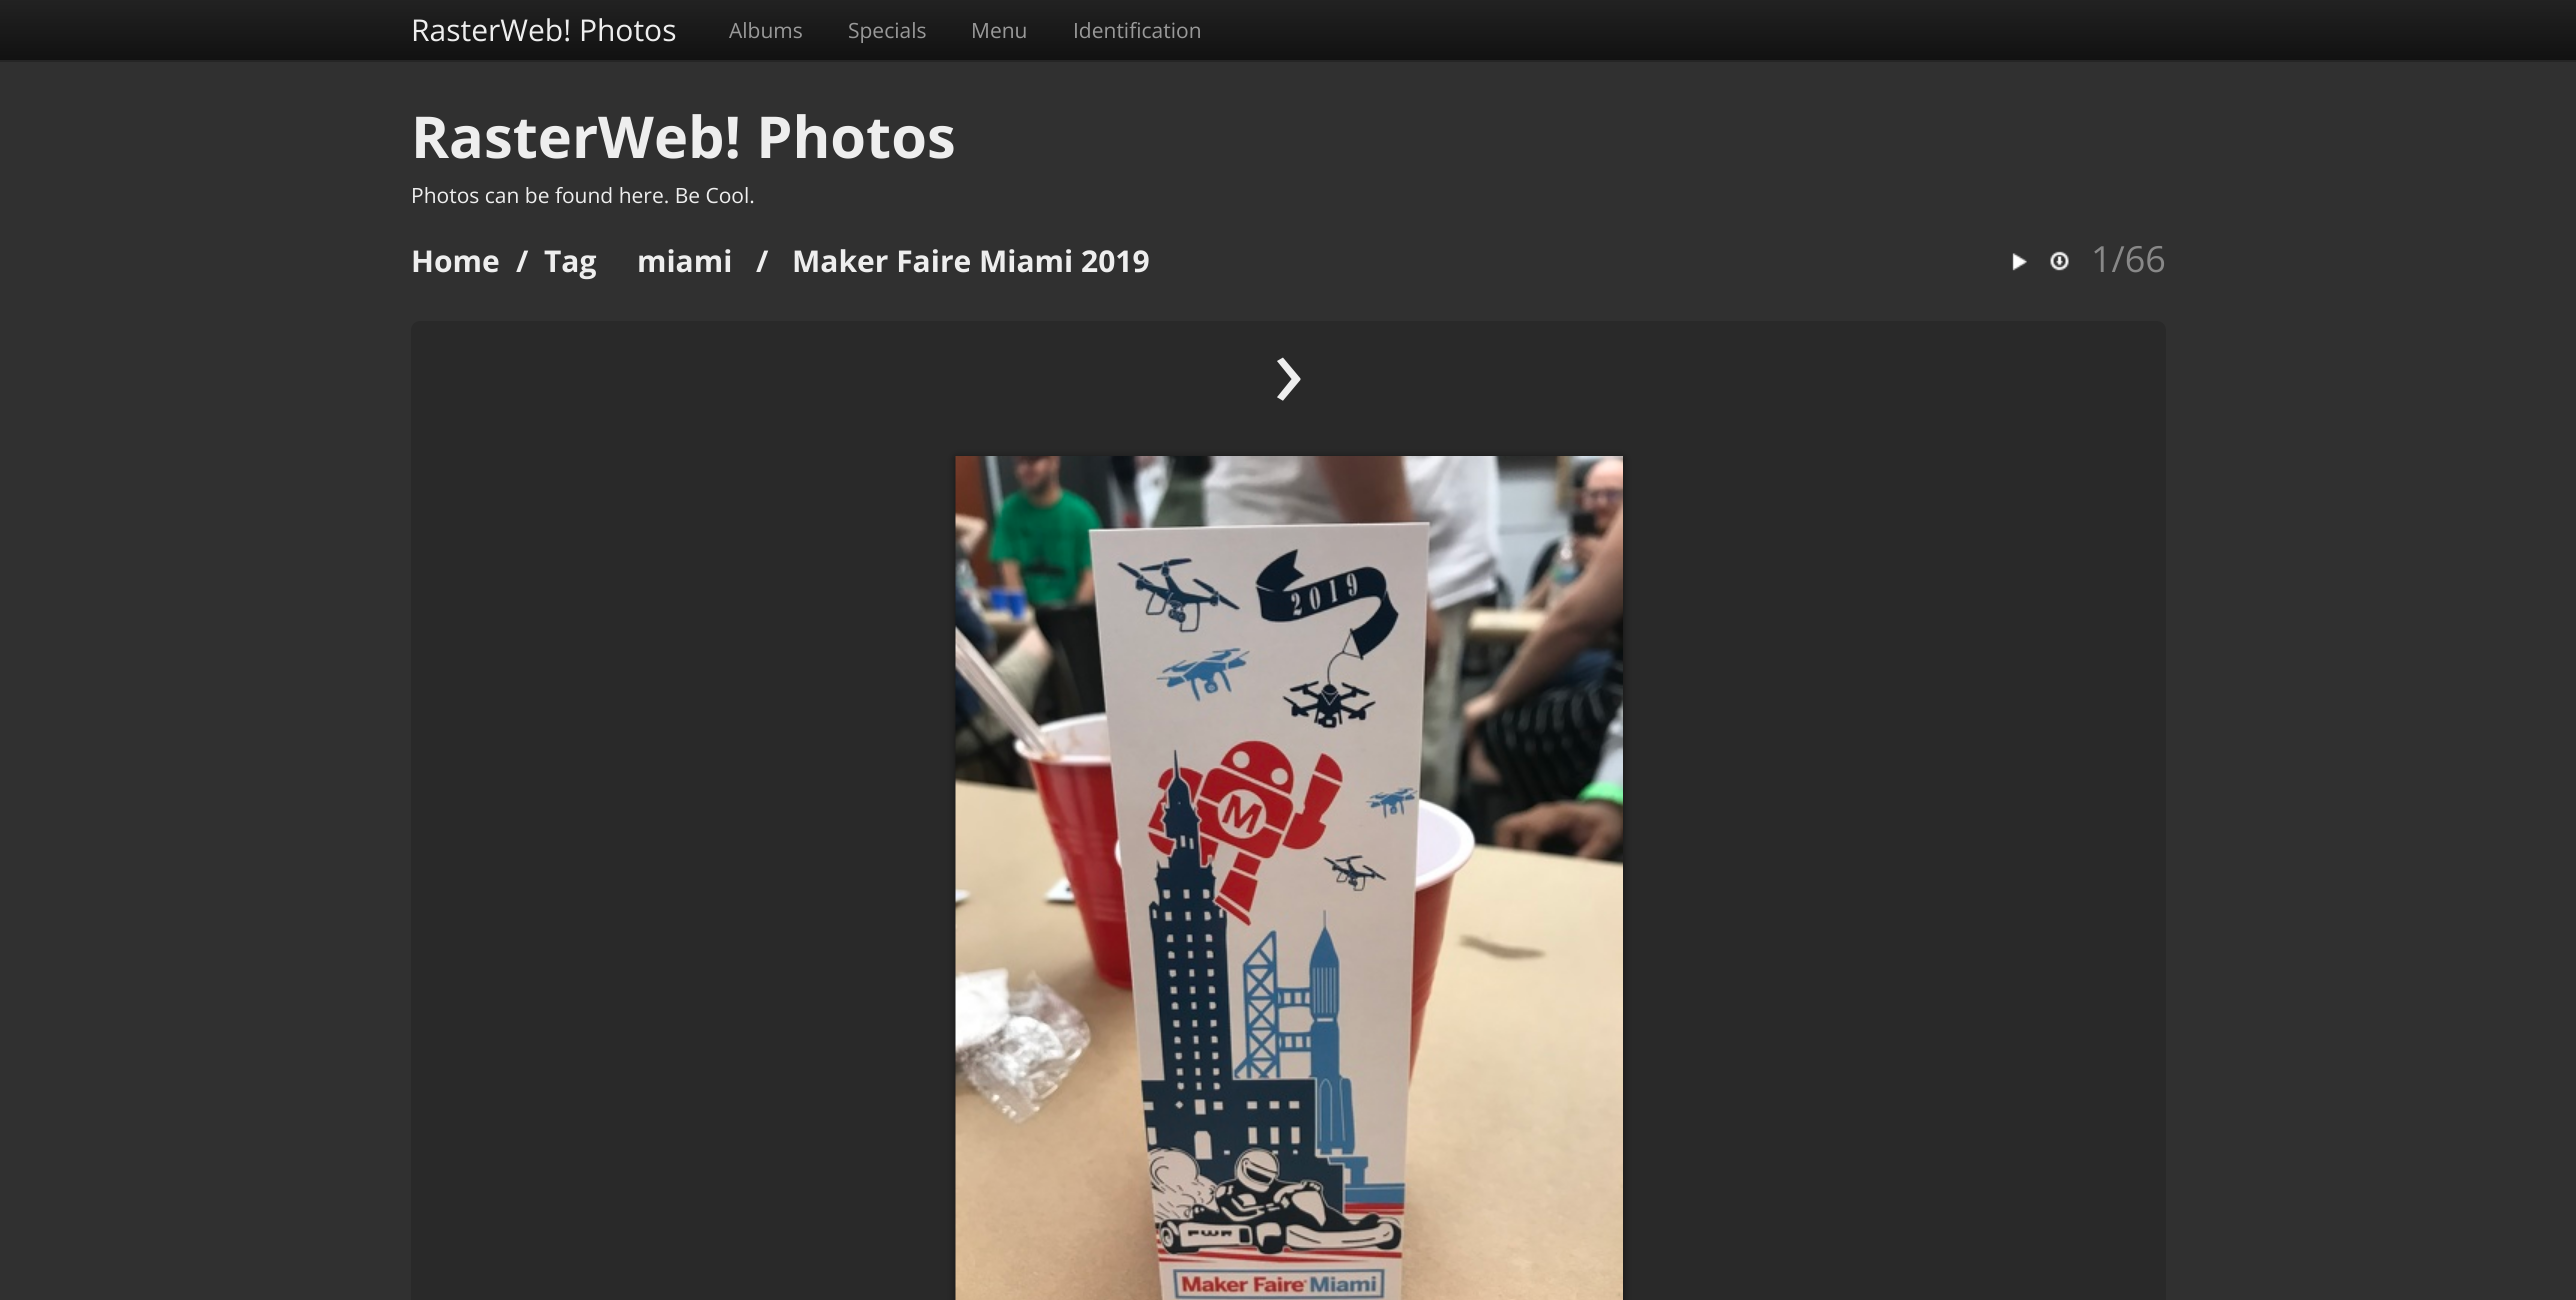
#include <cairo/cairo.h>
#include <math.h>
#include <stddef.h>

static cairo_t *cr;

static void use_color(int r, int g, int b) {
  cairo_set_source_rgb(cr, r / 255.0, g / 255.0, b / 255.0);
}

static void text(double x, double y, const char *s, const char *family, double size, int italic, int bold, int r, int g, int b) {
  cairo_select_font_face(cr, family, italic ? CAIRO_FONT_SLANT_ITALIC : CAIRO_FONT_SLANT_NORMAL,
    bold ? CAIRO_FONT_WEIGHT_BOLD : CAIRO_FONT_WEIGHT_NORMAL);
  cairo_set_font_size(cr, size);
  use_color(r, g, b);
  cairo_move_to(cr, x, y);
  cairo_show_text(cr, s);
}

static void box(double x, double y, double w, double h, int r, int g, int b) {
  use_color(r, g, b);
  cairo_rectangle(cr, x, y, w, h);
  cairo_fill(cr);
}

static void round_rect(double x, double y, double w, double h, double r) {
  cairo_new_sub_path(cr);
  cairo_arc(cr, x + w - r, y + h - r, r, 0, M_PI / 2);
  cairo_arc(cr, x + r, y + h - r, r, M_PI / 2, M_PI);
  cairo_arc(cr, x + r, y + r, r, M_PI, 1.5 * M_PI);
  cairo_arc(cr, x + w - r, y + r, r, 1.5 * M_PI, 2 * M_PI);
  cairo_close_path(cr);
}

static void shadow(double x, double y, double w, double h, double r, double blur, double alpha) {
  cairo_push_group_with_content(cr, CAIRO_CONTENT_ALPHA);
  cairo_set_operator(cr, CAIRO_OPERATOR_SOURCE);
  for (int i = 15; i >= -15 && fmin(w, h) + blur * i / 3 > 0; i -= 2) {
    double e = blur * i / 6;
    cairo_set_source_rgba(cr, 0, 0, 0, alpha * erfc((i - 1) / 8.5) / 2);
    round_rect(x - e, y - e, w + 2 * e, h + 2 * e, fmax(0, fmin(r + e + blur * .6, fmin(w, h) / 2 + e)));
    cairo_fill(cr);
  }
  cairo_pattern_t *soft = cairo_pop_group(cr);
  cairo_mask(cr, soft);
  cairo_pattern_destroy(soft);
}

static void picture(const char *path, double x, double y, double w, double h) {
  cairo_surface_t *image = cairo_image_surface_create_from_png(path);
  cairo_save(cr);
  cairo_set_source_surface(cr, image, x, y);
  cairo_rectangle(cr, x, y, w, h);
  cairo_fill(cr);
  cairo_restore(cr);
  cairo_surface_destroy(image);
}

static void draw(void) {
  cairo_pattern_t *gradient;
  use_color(48, 48, 48);
  cairo_paint(cr);
  gradient = cairo_pattern_create_linear(1289, 0, 1289, 60);
  cairo_pattern_add_color_stop_rgba(gradient, 0, 0.133, 0.133, 0.133, 1);
  cairo_pattern_add_color_stop_rgba(gradient, 1, 0.067, 0.067, 0.067, 1);
  cairo_set_source(cr, gradient);
  cairo_pattern_destroy(gradient);
  cairo_rectangle(cr, 0, 0, 2576, 60);
  cairo_fill(cr);
  box(0, 60, 2576, 2, 37, 37, 37);
  picture("img_01.png", 2012, 253, 15, 18);
  picture("img_02.png", 2050, 251, 19, 20);
  use_color(41, 41, 41);
  round_rect(411, 321, 1755, 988, 9);
  cairo_fill(cr);
  use_color(0, 0, 0);
  shadow(956, 458, 667, 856, 0, 4.5, 0.6);
  picture("img_03.png", 955, 456, 668, 844);
  text(411, 41, "RasterWeb! Photos", "Open Sans", 30, 0, 0, 238, 238, 238);
  text(729, 38, "Albums", "Open Sans", 21, 0, 0, 153, 153, 153);
  text(848, 38, "Specials", "Open Sans", 21, 0, 0, 153, 153, 153);
  text(971, 38, "Menu", "Open Sans", 21, 0, 0, 153, 153, 153);
  text(1073, 38, "Identification", "Open Sans", 21, 0, 0, 153, 153, 153);
  text(411, 158, "RasterWeb! Photos", "Open Sans", 57.75, 0, 1, 238, 238, 238);
  text(411, 203, "Photos can be found here. Be Cool.", "Open Sans", 21, 0, 0, 238, 238, 238);
  text(411, 272, "Home", "Open Sans", 30, 0, 1, 238, 238, 238);
  text(516, 272, "/", "Open Sans", 30, 0, 1, 238, 238, 238);
  text(544, 272, "Tag", "Open Sans", 30, 0, 1, 238, 238, 238);
  text(637, 272, "miami", "Open Sans", 30, 0, 1, 238, 238, 238);
  text(756, 272, "/", "Open Sans", 30, 0, 1, 238, 238, 238);
  text(792, 272, "Maker Faire Miami 2019", "Open Sans", 30, 0, 1, 238, 238, 238);
  text(2091, 272, "1/66", "Open Sans", 36, 0, 0, 136, 136, 136);
  text(1273, 407, "›", "Open Sans", 105, 0, 0, 238, 238, 238);
}

int main(void) {
  cairo_surface_t *surface = cairo_image_surface_create(CAIRO_FORMAT_RGB24, 2576, 1300);
  cr = cairo_create(surface);
  cairo_font_options_t *options = cairo_font_options_create();
  cairo_font_options_set_hint_metrics(options, CAIRO_HINT_METRICS_OFF);
  cairo_font_options_set_hint_style(options, CAIRO_HINT_STYLE_NONE);
  cairo_set_font_options(cr, options);
  cairo_set_miter_limit(cr, 4);
  draw();
  cairo_surface_write_to_png(surface, "out.png");
  cairo_font_options_destroy(options);
  cairo_destroy(cr);
  cairo_surface_destroy(surface);
  return 0;
}
